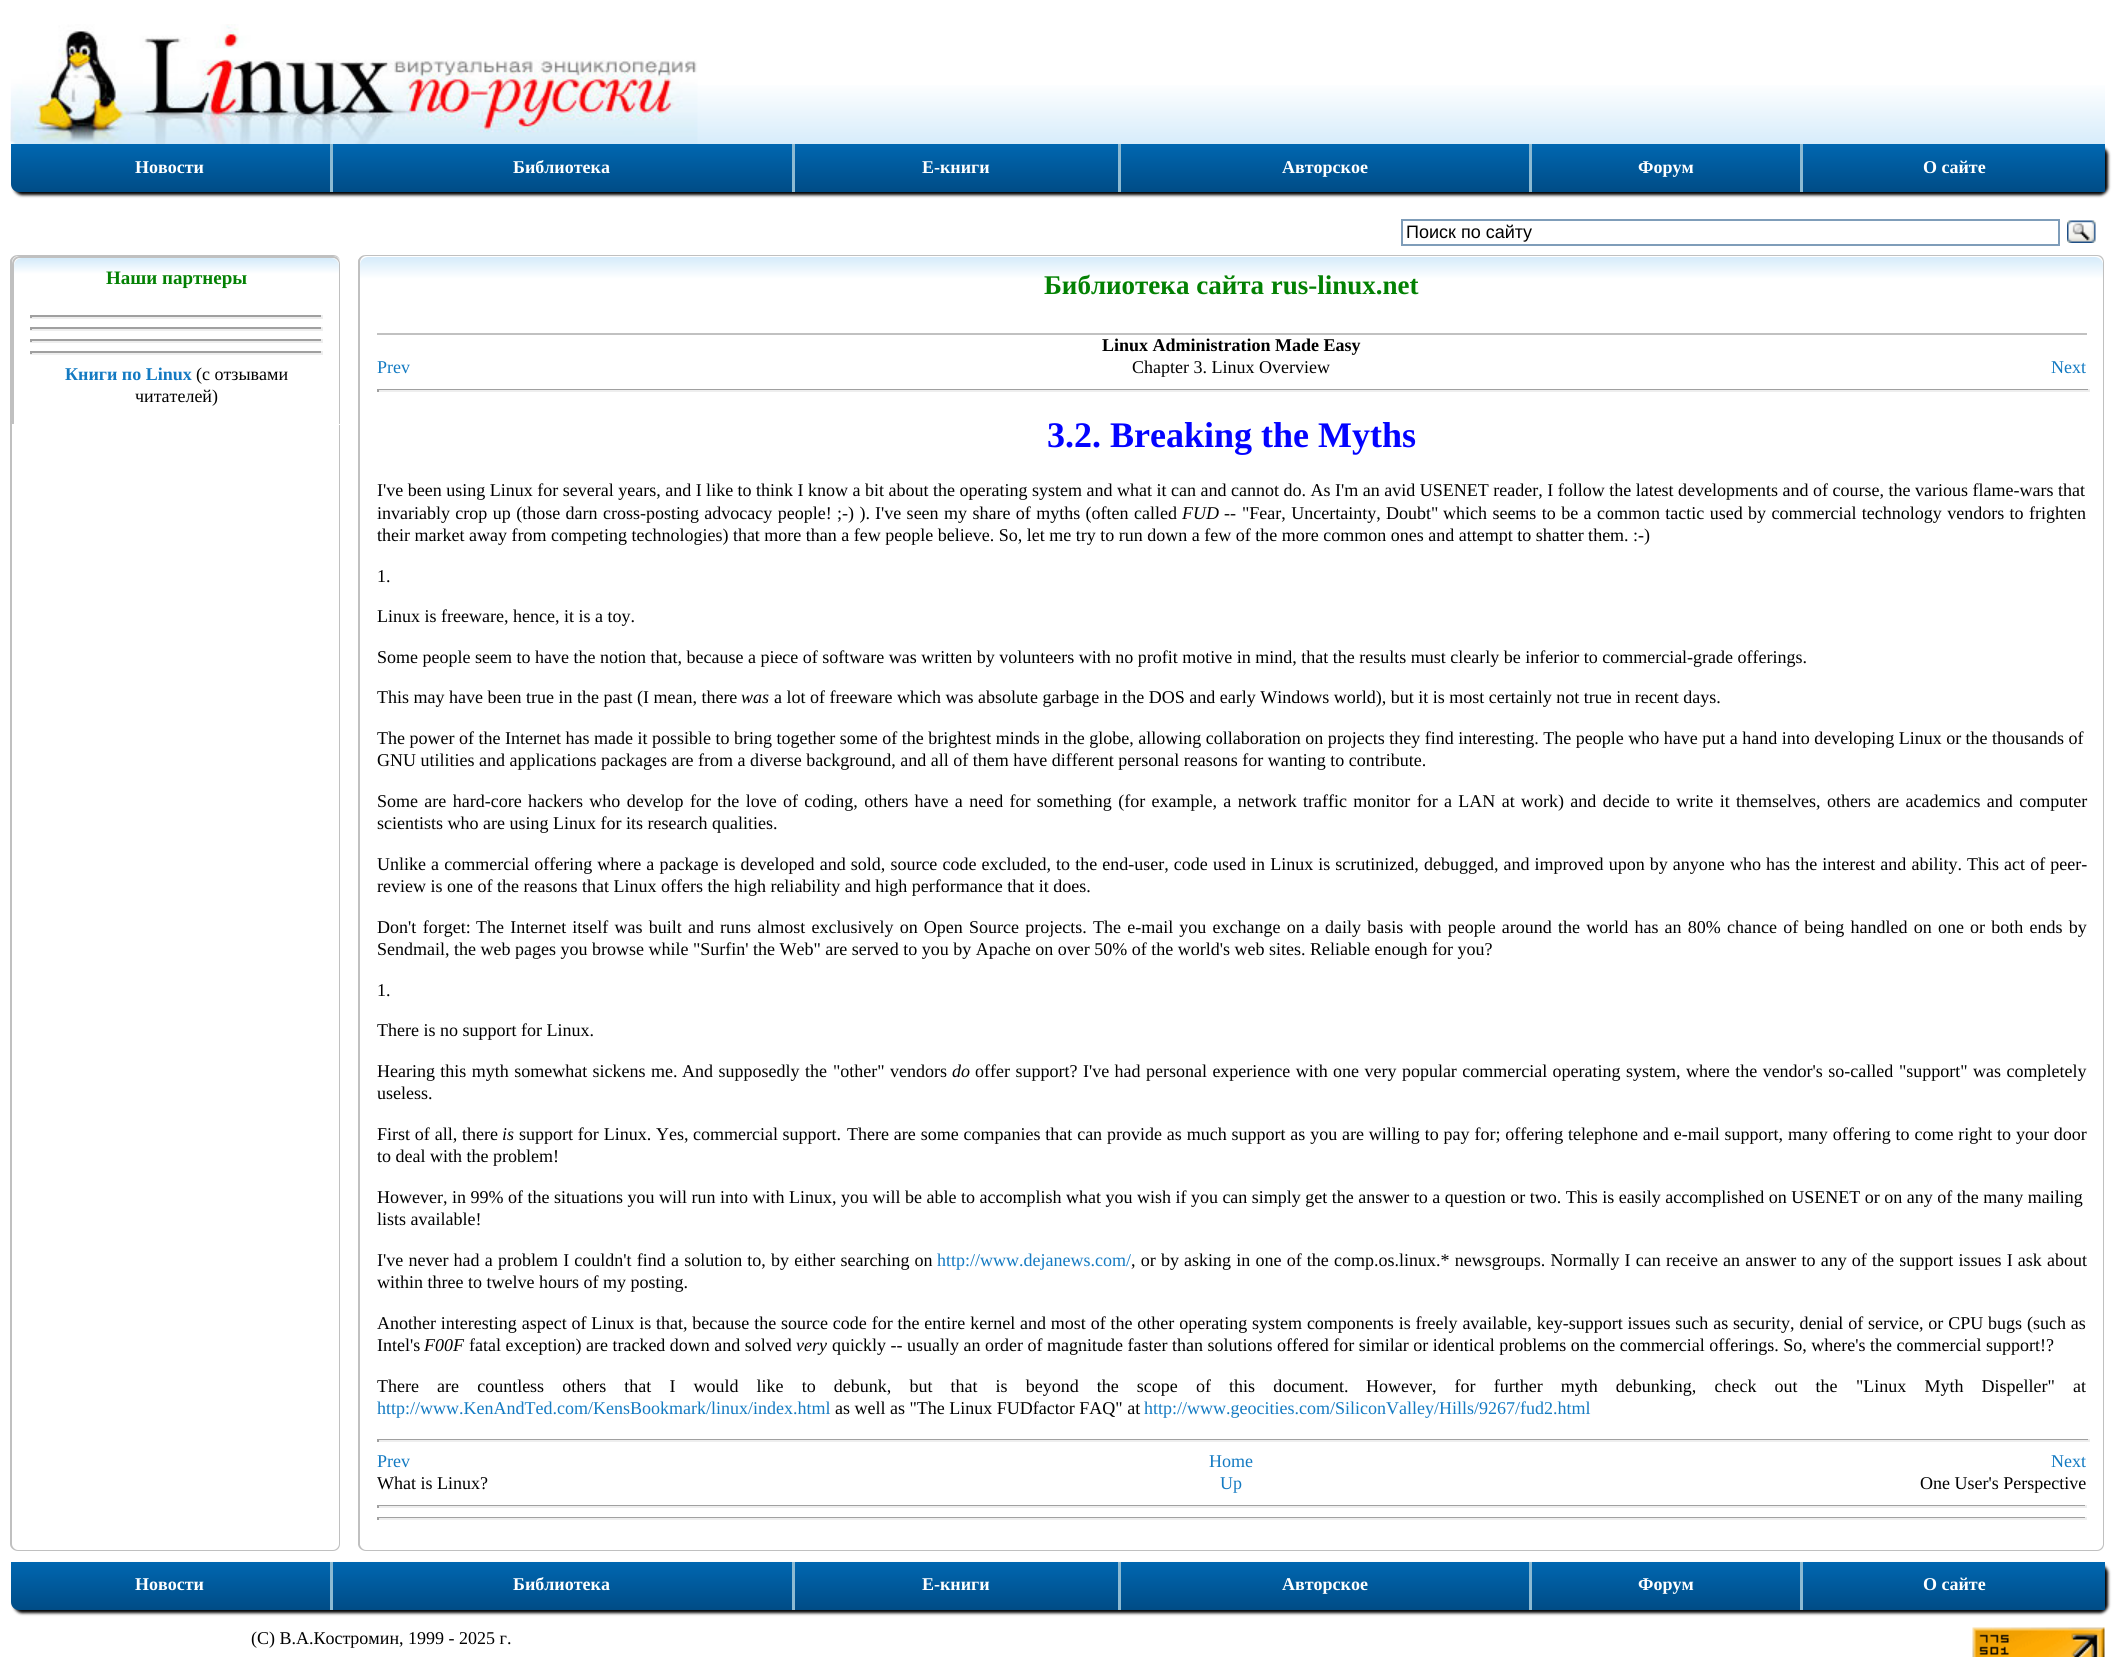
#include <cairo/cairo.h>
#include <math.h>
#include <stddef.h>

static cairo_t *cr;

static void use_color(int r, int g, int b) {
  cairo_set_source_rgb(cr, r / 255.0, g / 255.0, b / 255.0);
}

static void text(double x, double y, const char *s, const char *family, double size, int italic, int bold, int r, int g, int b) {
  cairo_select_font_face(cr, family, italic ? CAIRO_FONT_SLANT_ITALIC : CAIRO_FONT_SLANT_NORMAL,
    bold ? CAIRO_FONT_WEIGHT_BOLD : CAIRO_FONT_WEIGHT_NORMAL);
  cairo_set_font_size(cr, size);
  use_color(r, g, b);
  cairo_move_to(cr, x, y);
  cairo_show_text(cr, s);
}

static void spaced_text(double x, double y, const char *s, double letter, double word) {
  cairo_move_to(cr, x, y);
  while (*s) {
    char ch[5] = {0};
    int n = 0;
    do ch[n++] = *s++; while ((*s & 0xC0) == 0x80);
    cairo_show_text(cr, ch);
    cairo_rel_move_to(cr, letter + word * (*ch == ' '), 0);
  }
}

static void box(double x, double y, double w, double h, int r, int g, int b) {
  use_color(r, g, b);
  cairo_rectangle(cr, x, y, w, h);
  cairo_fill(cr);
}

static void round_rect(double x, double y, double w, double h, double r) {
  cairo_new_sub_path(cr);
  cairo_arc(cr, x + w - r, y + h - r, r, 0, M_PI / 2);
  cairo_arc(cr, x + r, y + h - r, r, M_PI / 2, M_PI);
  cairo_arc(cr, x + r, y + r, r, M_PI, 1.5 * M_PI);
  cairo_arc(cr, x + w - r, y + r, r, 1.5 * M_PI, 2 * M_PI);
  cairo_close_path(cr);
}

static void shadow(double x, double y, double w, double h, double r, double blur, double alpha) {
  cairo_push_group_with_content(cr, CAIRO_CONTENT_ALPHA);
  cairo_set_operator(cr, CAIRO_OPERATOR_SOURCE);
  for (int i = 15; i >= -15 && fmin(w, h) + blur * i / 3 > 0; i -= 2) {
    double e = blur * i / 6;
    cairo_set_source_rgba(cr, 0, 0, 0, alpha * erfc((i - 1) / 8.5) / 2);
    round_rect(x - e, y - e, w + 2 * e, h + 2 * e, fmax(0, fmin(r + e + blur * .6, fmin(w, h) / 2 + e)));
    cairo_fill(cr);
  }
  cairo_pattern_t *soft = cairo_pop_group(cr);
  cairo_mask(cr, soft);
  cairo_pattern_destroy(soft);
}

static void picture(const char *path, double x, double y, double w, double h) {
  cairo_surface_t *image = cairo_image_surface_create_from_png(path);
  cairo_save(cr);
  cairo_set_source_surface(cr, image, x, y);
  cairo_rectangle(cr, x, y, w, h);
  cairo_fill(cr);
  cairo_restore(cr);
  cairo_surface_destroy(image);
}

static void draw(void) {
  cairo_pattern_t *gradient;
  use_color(255, 255, 255);
  cairo_paint(cr);
  use_color(0, 0, 0);
  shadow(14, 147, 2094, 48, 8, 1.5, 1);
  gradient = cairo_pattern_create_linear(1058, 150, 1058, 12);
  cairo_pattern_add_color_stop_rgba(gradient, 0, 0.827, 0.918, 0.98, 1);
  cairo_pattern_add_color_stop_rgba(gradient, 0.5, 1, 1, 1, 1);
  cairo_pattern_add_color_stop_rgba(gradient, 1, 1, 1, 1, 1);
  cairo_set_source(cr, gradient);
  cairo_pattern_destroy(gradient);
  cairo_rectangle(cr, 11, 85, 2094, 59);
  cairo_fill(cr);
  picture("img_01.png", 10, 24, 688, 120);
  picture("img_02.png", 10, 119, 1, 23);
  gradient = cairo_pattern_create_linear(170, 144, 170, 192);
  cairo_pattern_add_color_stop_rgba(gradient, 0, 0, 0.404, 0.694, 1);
  cairo_pattern_add_color_stop_rgba(gradient, 1, 0, 0.298, 0.525, 1);
  cairo_set_source(cr, gradient);
  cairo_pattern_destroy(gradient);
  cairo_new_path(cr);
  cairo_move_to(cr, 11, 144);
  cairo_line_to(cr, 330, 144);
  cairo_line_to(cr, 330, 192);
  cairo_line_to(cr, 19, 192);
  cairo_curve_to(cr, 14.5, 192, 11, 188.5, 11, 184);
  cairo_close_path(cr);
  cairo_fill(cr);
  gradient = cairo_pattern_create_linear(563, 144, 563, 192);
  cairo_pattern_add_color_stop_rgba(gradient, 0, 0, 0.404, 0.694, 1);
  cairo_pattern_add_color_stop_rgba(gradient, 1, 0, 0.298, 0.525, 1);
  cairo_set_source(cr, gradient);
  cairo_pattern_destroy(gradient);
  cairo_rectangle(cr, 333, 144, 459, 48);
  cairo_fill(cr);
  box(330, 144, 3, 48, 140, 186, 210);
  gradient = cairo_pattern_create_linear(956, 144, 956, 192);
  cairo_pattern_add_color_stop_rgba(gradient, 0, 0, 0.404, 0.694, 1);
  cairo_pattern_add_color_stop_rgba(gradient, 1, 0, 0.298, 0.525, 1);
  cairo_set_source(cr, gradient);
  cairo_pattern_destroy(gradient);
  cairo_rectangle(cr, 795, 144, 323, 48);
  cairo_fill(cr);
  box(792, 144, 3, 48, 140, 186, 210);
  gradient = cairo_pattern_create_linear(1325, 144, 1325, 192);
  cairo_pattern_add_color_stop_rgba(gradient, 0, 0, 0.404, 0.694, 1);
  cairo_pattern_add_color_stop_rgba(gradient, 1, 0, 0.298, 0.525, 1);
  cairo_set_source(cr, gradient);
  cairo_pattern_destroy(gradient);
  cairo_rectangle(cr, 1121, 144, 408, 48);
  cairo_fill(cr);
  box(1118, 144, 3, 48, 140, 186, 210);
  gradient = cairo_pattern_create_linear(1666, 144, 1666, 192);
  cairo_pattern_add_color_stop_rgba(gradient, 0, 0, 0.404, 0.694, 1);
  cairo_pattern_add_color_stop_rgba(gradient, 1, 0, 0.298, 0.525, 1);
  cairo_set_source(cr, gradient);
  cairo_pattern_destroy(gradient);
  cairo_rectangle(cr, 1532, 144, 268, 48);
  cairo_fill(cr);
  box(1529, 144, 3, 48, 140, 186, 210);
  gradient = cairo_pattern_create_linear(1954, 144, 1954, 192);
  cairo_pattern_add_color_stop_rgba(gradient, 0, 0, 0.404, 0.694, 1);
  cairo_pattern_add_color_stop_rgba(gradient, 1, 0, 0.298, 0.525, 1);
  cairo_set_source(cr, gradient);
  cairo_pattern_destroy(gradient);
  cairo_rectangle(cr, 1803, 144, 302, 48);
  cairo_fill(cr);
  box(1800, 144, 3, 48, 140, 186, 210);
  cairo_rectangle(cr, 1402, 220, 657, 25);
  use_color(127, 157, 185);
  cairo_stroke(cr);
  picture("img_03.png", 2067, 220, 29, 23);
  use_color(192, 192, 192);
  cairo_set_fill_rule(cr, CAIRO_FILL_RULE_EVEN_ODD);
  cairo_new_path(cr);
  cairo_move_to(cr, 18, 255);
  cairo_line_to(cr, 333, 255);
  cairo_curve_to(cr, 337, 255, 340, 258, 340, 262);
  cairo_line_to(cr, 340, 1544);
  cairo_curve_to(cr, 340, 1548, 337, 1551, 333, 1551);
  cairo_line_to(cr, 18, 1551);
  cairo_curve_to(cr, 14, 1551, 10, 1548, 10, 1544);
  cairo_line_to(cr, 10, 262);
  cairo_curve_to(cr, 10, 258, 14, 255, 18, 255);
  cairo_close_path(cr);
  cairo_move_to(cr, 18, 255);
  cairo_line_to(cr, 333, 255);
  cairo_curve_to(cr, 336, 255, 339, 258, 339, 262);
  cairo_line_to(cr, 339, 1544);
  cairo_curve_to(cr, 339, 1547, 336, 1550, 333, 1550);
  cairo_line_to(cr, 18, 1550);
  cairo_curve_to(cr, 15, 1550, 12, 1547, 12, 1544);
  cairo_line_to(cr, 12, 262);
  cairo_curve_to(cr, 12, 258, 15, 255, 18, 255);
  cairo_close_path(cr);
  cairo_fill(cr);
  cairo_set_source_rgba(cr, 1, 1, 1, 0.99);
  round_rect(11, 255, 330, 170, 8);
  cairo_fill(cr);
  cairo_set_source_rgba(cr, 0.753, 0.753, 0.753, 0.99);
  cairo_new_path(cr);
  cairo_move_to(cr, 18, 255);
  cairo_line_to(cr, 333, 255);
  cairo_curve_to(cr, 337, 255, 340, 258, 340, 262);
  cairo_line_to(cr, 340, 417);
  cairo_curve_to(cr, 340, 421, 337, 424, 333, 424);
  cairo_line_to(cr, 18, 424);
  cairo_curve_to(cr, 14, 424, 10, 421, 10, 417);
  cairo_line_to(cr, 10, 262);
  cairo_curve_to(cr, 10, 258, 14, 255, 18, 255);
  cairo_close_path(cr);
  cairo_move_to(cr, 18, 256);
  cairo_line_to(cr, 333, 256);
  cairo_curve_to(cr, 337, 256, 340, 259, 340, 262);
  cairo_line_to(cr, 340, 417);
  cairo_curve_to(cr, 340, 421, 337, 424, 333, 424);
  cairo_line_to(cr, 18, 424);
  cairo_curve_to(cr, 15, 424, 12, 421, 12, 417);
  cairo_line_to(cr, 12, 262);
  cairo_curve_to(cr, 12, 259, 15, 256, 18, 256);
  cairo_close_path(cr);
  cairo_fill(cr);
  cairo_set_source_rgba(cr, 1, 1, 1, 0.99);
  cairo_new_path(cr);
  cairo_move_to(cr, 20, 257);
  cairo_line_to(cr, 333, 257);
  cairo_curve_to(cr, 337.5, 257, 341, 260.5, 341, 265);
  cairo_line_to(cr, 341, 425);
  cairo_line_to(cr, 12, 425);
  cairo_line_to(cr, 12, 265);
  cairo_curve_to(cr, 12, 260.5, 15.5, 257, 20, 257);
  cairo_close_path(cr);
  cairo_fill(cr);
  cairo_set_source_rgba(cr, 0.753, 0.753, 0.753, 0.99);
  cairo_new_path(cr);
  cairo_move_to(cr, 20, 256);
  cairo_line_to(cr, 333, 256);
  cairo_curve_to(cr, 337, 256, 340, 260, 340, 264);
  cairo_line_to(cr, 340, 424);
  cairo_line_to(cr, 12, 424);
  cairo_line_to(cr, 12, 264);
  cairo_curve_to(cr, 12, 260, 15, 256, 20, 256);
  cairo_close_path(cr);
  cairo_move_to(cr, 20, 258);
  cairo_line_to(cr, 333, 258);
  cairo_curve_to(cr, 336, 258, 339, 261, 339, 264);
  cairo_line_to(cr, 339, 424);
  cairo_line_to(cr, 14, 424);
  cairo_line_to(cr, 14, 264);
  cairo_curve_to(cr, 14, 261, 16, 258, 20, 258);
  cairo_close_path(cr);
  cairo_fill(cr);
  gradient = cairo_pattern_create_linear(176, 258, 176, 290);
  cairo_pattern_add_color_stop_rgba(gradient, 0, 0.827, 0.918, 0.98, 1);
  cairo_pattern_add_color_stop_rgba(gradient, 0.5, 1, 1, 1, 1);
  cairo_pattern_add_color_stop_rgba(gradient, 1, 1, 1, 1, 1);
  cairo_set_source(cr, gradient);
  cairo_pattern_destroy(gradient);
  round_rect(14, 258, 325, 32, 8);
  cairo_fill(cr);
  box(30, 315, 293, 2, 160, 160, 160);
  box(321, 315, 2, 3, 238, 238, 238);
  box(30, 317, 293, 2, 238, 238, 238);
  box(30, 315, 2, 3, 160, 160, 160);
  box(30, 327, 293, 2, 160, 160, 160);
  box(321, 327, 2, 3, 238, 238, 238);
  box(30, 329, 293, 2, 238, 238, 238);
  box(30, 327, 2, 3, 160, 160, 160);
  box(30, 339, 293, 2, 160, 160, 160);
  box(321, 339, 2, 3, 238, 238, 238);
  box(30, 341, 293, 2, 238, 238, 238);
  box(30, 339, 2, 3, 160, 160, 160);
  box(30, 351, 293, 2, 160, 160, 160);
  box(321, 351, 2, 3, 238, 238, 238);
  box(30, 353, 293, 2, 238, 238, 238);
  box(30, 351, 2, 3, 160, 160, 160);
  use_color(192, 192, 192);
  cairo_new_path(cr);
  cairo_move_to(cr, 366, 255);
  cairo_line_to(cr, 2097, 255);
  cairo_curve_to(cr, 2101, 255, 2104, 258, 2104, 262);
  cairo_line_to(cr, 2104, 1544);
  cairo_curve_to(cr, 2104, 1548, 2101, 1551, 2097, 1551);
  cairo_line_to(cr, 366, 1551);
  cairo_curve_to(cr, 362, 1551, 358, 1548, 358, 1544);
  cairo_line_to(cr, 358, 262);
  cairo_curve_to(cr, 358, 258, 362, 255, 366, 255);
  cairo_close_path(cr);
  cairo_move_to(cr, 366, 255);
  cairo_line_to(cr, 2097, 255);
  cairo_curve_to(cr, 2100, 255, 2103, 258, 2103, 262);
  cairo_line_to(cr, 2103, 1544);
  cairo_curve_to(cr, 2103, 1547, 2100, 1550, 2097, 1550);
  cairo_line_to(cr, 366, 1550);
  cairo_curve_to(cr, 363, 1550, 360, 1547, 360, 1544);
  cairo_line_to(cr, 360, 262);
  cairo_curve_to(cr, 360, 258, 363, 255, 366, 255);
  cairo_close_path(cr);
  cairo_fill(cr);
  cairo_set_source_rgba(cr, 1, 1, 1, 0.99);
  cairo_new_path(cr);
  cairo_move_to(cr, 367, 255);
  cairo_line_to(cr, 2097, 255);
  cairo_curve_to(cr, 2101.5, 255, 2105, 258.5, 2105, 263);
  cairo_line_to(cr, 2105, 1545);
  cairo_line_to(cr, 359, 1545);
  cairo_line_to(cr, 359, 263);
  cairo_curve_to(cr, 359, 258.5, 362.5, 255, 367, 255);
  cairo_close_path(cr);
  cairo_fill(cr);
  cairo_set_source_rgba(cr, 0.753, 0.753, 0.753, 0.99);
  cairo_new_path(cr);
  cairo_move_to(cr, 366, 255);
  cairo_line_to(cr, 2097, 255);
  cairo_curve_to(cr, 2101, 255, 2104, 258, 2104, 262);
  cairo_line_to(cr, 2104, 1545);
  cairo_line_to(cr, 358, 1545);
  cairo_line_to(cr, 358, 262);
  cairo_curve_to(cr, 358, 258, 362, 255, 366, 255);
  cairo_close_path(cr);
  cairo_move_to(cr, 366, 256);
  cairo_line_to(cr, 2097, 256);
  cairo_curve_to(cr, 2100, 256, 2103, 259, 2103, 262);
  cairo_line_to(cr, 2103, 1545);
  cairo_line_to(cr, 360, 1545);
  cairo_line_to(cr, 360, 262);
  cairo_curve_to(cr, 360, 259, 363, 256, 366, 256);
  cairo_close_path(cr);
  cairo_fill(cr);
  gradient = cairo_pattern_create_linear(1232, 256, 1232, 302);
  cairo_pattern_add_color_stop_rgba(gradient, 0, 0.827, 0.918, 0.98, 1);
  cairo_pattern_add_color_stop_rgba(gradient, 0.5, 1, 1, 1, 1);
  cairo_pattern_add_color_stop_rgba(gradient, 1, 1, 1, 1, 1);
  cairo_set_source(cr, gradient);
  cairo_pattern_destroy(gradient);
  round_rect(360, 257, 1743, 45, 8);
  cairo_fill(cr);
  box(377, 333, 1710, 2, 193, 193, 193);
  box(377, 389, 1713, 1, 160, 160, 160);
  box(2088, 389, 2, 3, 238, 238, 238);
  box(377, 390, 1713, 2, 238, 238, 238);
  box(377, 389, 2, 3, 160, 160, 160);
  box(377, 1439, 1713, 1, 160, 160, 160);
  box(2088, 1439, 2, 3, 238, 238, 238);
  box(377, 1440, 1713, 2, 238, 238, 238);
  box(377, 1439, 2, 3, 160, 160, 160);
  box(377, 1505, 1710, 1, 160, 160, 160);
  box(2085, 1505, 2, 3, 238, 238, 238);
  box(377, 1506, 1710, 2, 238, 238, 238);
  box(377, 1505, 2, 3, 160, 160, 160);
  box(377, 1517, 1710, 1, 160, 160, 160);
  box(2085, 1517, 2, 3, 238, 238, 238);
  box(377, 1518, 1710, 2, 238, 238, 238);
  box(377, 1517, 2, 3, 160, 160, 160);
  use_color(0, 0, 0);
  shadow(14, 1565, 2094, 48, 8, 1.5, 1);
  gradient = cairo_pattern_create_linear(170, 1562, 170, 1610);
  cairo_pattern_add_color_stop_rgba(gradient, 0, 0, 0.404, 0.694, 1);
  cairo_pattern_add_color_stop_rgba(gradient, 1, 0, 0.298, 0.525, 1);
  cairo_set_source(cr, gradient);
  cairo_pattern_destroy(gradient);
  cairo_new_path(cr);
  cairo_move_to(cr, 11, 1562);
  cairo_line_to(cr, 330, 1562);
  cairo_line_to(cr, 330, 1610);
  cairo_line_to(cr, 19, 1610);
  cairo_curve_to(cr, 14.5, 1610, 11, 1606.5, 11, 1602);
  cairo_close_path(cr);
  cairo_fill(cr);
  gradient = cairo_pattern_create_linear(563, 1562, 563, 1610);
  cairo_pattern_add_color_stop_rgba(gradient, 0, 0, 0.404, 0.694, 1);
  cairo_pattern_add_color_stop_rgba(gradient, 1, 0, 0.298, 0.525, 1);
  cairo_set_source(cr, gradient);
  cairo_pattern_destroy(gradient);
  cairo_rectangle(cr, 333, 1562, 459, 48);
  cairo_fill(cr);
  box(330, 1562, 3, 48, 140, 186, 210);
  gradient = cairo_pattern_create_linear(956, 1562, 956, 1610);
  cairo_pattern_add_color_stop_rgba(gradient, 0, 0, 0.404, 0.694, 1);
  cairo_pattern_add_color_stop_rgba(gradient, 1, 0, 0.298, 0.525, 1);
  cairo_set_source(cr, gradient);
  cairo_pattern_destroy(gradient);
  cairo_rectangle(cr, 795, 1562, 323, 48);
  cairo_fill(cr);
  box(792, 1562, 3, 48, 140, 186, 210);
  gradient = cairo_pattern_create_linear(1325, 1562, 1325, 1610);
  cairo_pattern_add_color_stop_rgba(gradient, 0, 0, 0.404, 0.694, 1);
  cairo_pattern_add_color_stop_rgba(gradient, 1, 0, 0.298, 0.525, 1);
  cairo_set_source(cr, gradient);
  cairo_pattern_destroy(gradient);
  cairo_rectangle(cr, 1121, 1562, 408, 48);
  cairo_fill(cr);
  box(1118, 1562, 3, 48, 140, 186, 210);
  gradient = cairo_pattern_create_linear(1666, 1562, 1666, 1610);
  cairo_pattern_add_color_stop_rgba(gradient, 0, 0, 0.404, 0.694, 1);
  cairo_pattern_add_color_stop_rgba(gradient, 1, 0, 0.298, 0.525, 1);
  cairo_set_source(cr, gradient);
  cairo_pattern_destroy(gradient);
  cairo_rectangle(cr, 1532, 1562, 268, 48);
  cairo_fill(cr);
  box(1529, 1562, 3, 48, 140, 186, 210);
  gradient = cairo_pattern_create_linear(1954, 1562, 1954, 1610);
  cairo_pattern_add_color_stop_rgba(gradient, 0, 0, 0.404, 0.694, 1);
  cairo_pattern_add_color_stop_rgba(gradient, 1, 0, 0.298, 0.525, 1);
  cairo_set_source(cr, gradient);
  cairo_pattern_destroy(gradient);
  cairo_rectangle(cr, 1803, 1562, 302, 48);
  cairo_fill(cr);
  box(1800, 1562, 3, 48, 140, 186, 210);
  picture("img_04.png", 1972, 1627, 133, 30);
  text(135, 173, "Новости", "Liberation Serif", 18, 0, 1, 255, 255, 255);
  text(513, 173, "Библиотека", "Liberation Serif", 18, 0, 1, 255, 255, 255);
  text(922, 173, "Е-книги", "Liberation Serif", 18, 0, 1, 255, 255, 255);
  text(1282, 173, "Авторское", "Liberation Serif", 18, 0, 1, 255, 255, 255);
  text(1638, 173, "Форум", "Liberation Serif", 18, 0, 1, 255, 255, 255);
  text(1923, 173, "О сайте", "Liberation Serif", 18, 0, 1, 255, 255, 255);
  text(1406, 238, "Поиск по сайту", "Liberation Sans", 18, 0, 0, 0, 0, 0);
  text(106, 284, "Наши партнеры", "Liberation Serif", 19, 0, 1, 3, 129, 3);
  text(65, 380, "Книги по Linux", "Liberation Serif", 18, 0, 1, 19, 122, 194);
  text(196, 380, "(с отзывами", "Liberation Serif", 18, 0, 0, 0, 0, 0);
  text(135, 402, "читателей)", "Liberation Serif", 18, 0, 0, 0, 0, 0);
  text(1044, 294, "Библиотека сайта rus-linux.net", "Liberation Serif", 27, 0, 1, 3, 129, 3);
  text(1102, 351, "Linux Administration Made Easy", "Liberation Serif", 18, 0, 1, 0, 0, 0);
  text(377, 373, "Prev", "Liberation Serif", 18, 0, 0, 19, 122, 194);
  text(1132, 373, "Chapter 3. Linux Overview", "Liberation Serif", 18, 0, 0, 0, 0, 0);
  text(2051, 373, "Next", "Liberation Serif", 18, 0, 0, 19, 122, 194);
  text(1047, 447, "3.2. Breaking the Myths", "Liberation Serif", 36, 0, 1, 3, 3, 255);
  text(377, 496, "I've been using Linux for several years, and I like to think I know a bit about the operating system and what it can and cannot do. As I'm an avid USENET reader, I follow the latest developments and of course, the various flame-wars that", "Liberation Serif", 18, 0, 0, 0, 0, 0);
  spaced_text(377, 519, "invariably crop up (those darn cross-posting advocacy people! ;-) ).", 0, 0.9);
  spaced_text(875, 519, "I've seen my share of myths (often called", 0, 0.9);
  text(1182, 519, "FUD", "Liberation Serif", 18, 1, 0, 0, 0, 0);
  text(1224, 519, "--", "Liberation Serif", 18, 0, 0, 0, 0, 0);
  spaced_text(1242, 519, "\"Fear, Uncertainty, Doubt\"", 0, 0.9);
  spaced_text(1443, 519, "which seems to be a common tactic used by commercial technology vendors to frighten", 0, 0.9);
  text(377, 541, "their market away from competing technologies) that more than a few people believe. So, let me try to run down a few of the more common ones and attempt to shatter them. :-)", "Liberation Serif", 18, 0, 0, 0, 0, 0);
  text(377, 582, "1.", "Liberation Serif", 18, 0, 0, 0, 0, 0);
  text(377, 622, "Linux is freeware, hence, it is a toy.", "Liberation Serif", 18, 0, 0, 0, 0, 0);
  text(377, 663, "Some people seem to have the notion that, because a piece of software was written by volunteers with no profit motive in mind, that the results must clearly be inferior to commercial-grade offerings.", "Liberation Serif", 18, 0, 0, 0, 0, 0);
  text(377, 703, "This may have been true in the past (I mean, there", "Liberation Serif", 18, 0, 0, 0, 0, 0);
  text(741, 703, "was", "Liberation Serif", 18, 1, 0, 0, 0, 0);
  text(774, 703, "a lot of freeware which was absolute garbage in the DOS and early Windows world), but it is most certainly not true in recent days.", "Liberation Serif", 18, 0, 0, 0, 0, 0);
  text(377, 744, "The power of the Internet has made it possible to bring together some of the brightest minds in the globe, allowing collaboration on projects they find interesting. The people who have put a hand into developing Linux or the thousands of", "Liberation Serif", 18, 0, 0, 0, 0, 0);
  text(377, 766, "GNU utilities and applications packages are from a diverse background, and all of them have different personal reasons for wanting to contribute.", "Liberation Serif", 18, 0, 0, 0, 0, 0);
  spaced_text(377, 807, "Some are hard-core hackers who develop for the love of coding, others have a need for something (for example, a network traffic monitor for a LAN at work) and decide to write it themselves, others are academics and computer", 0, 1.85);
  text(377, 829, "scientists who are using Linux for its research qualities.", "Liberation Serif", 18, 0, 0, 0, 0, 0);
  spaced_text(377, 870, "Unlike a commercial offering where a package is developed and sold, source code excluded, to the end-user, code used in Linux is scrutinized, debugged, and improved upon by anyone who has the interest and ability. This act of peer-", 0, 0.6);
  text(377, 892, "review is one of the reasons that Linux offers the high reliability and high performance that it does.", "Liberation Serif", 18, 0, 0, 0, 0, 0);
  spaced_text(377, 933, "Don't forget:", 0, 2);
  spaced_text(476, 933, "The Internet itself was built and runs almost exclusively on Open Source projects.", 0, 1.7);
  spaced_text(1093, 933, "The e-mail you exchange on a daily basis with people around the world has an 80% chance of being handled on one or both ends by", 0, 1.7);
  text(377, 955, "Sendmail, the web pages you browse while \"Surfin' the Web\" are served to you by Apache on over 50% of the world's web sites. Reliable enough for you?", "Liberation Serif", 18, 0, 0, 0, 0, 0);
  text(377, 996, "1.", "Liberation Serif", 18, 0, 0, 0, 0, 0);
  text(377, 1036, "There is no support for Linux.", "Liberation Serif", 18, 0, 0, 0, 0, 0);
  spaced_text(377, 1077, "Hearing this myth somewhat sickens me.", 0, 0.9);
  spaced_text(682, 1077, "And supposedly the", 0, 1);
  text(833, 1077, "\"other\"", "Liberation Serif", 18, 0, 0, 0, 0, 0);
  text(890, 1077, "vendors", "Liberation Serif", 18, 0, 0, 0, 0, 0);
  text(952, 1077, "do", "Liberation Serif", 18, 1, 0, 0, 0, 0);
  cairo_select_font_face(cr, "Liberation Serif", CAIRO_FONT_SLANT_NORMAL, CAIRO_FONT_WEIGHT_NORMAL);
  spaced_text(975, 1077, "offer support?", 0, 1);
  spaced_text(1083, 1077, "I've had personal experience with one very popular commercial operating system, where the vendor's so-called", 0, 0.9);
  text(1899, 1077, "\"support\"", "Liberation Serif", 18, 0, 0, 0, 0, 0);
  spaced_text(1973, 1077, "was completely", 0, 1);
  text(377, 1099, "useless.", "Liberation Serif", 18, 0, 0, 0, 0, 0);
  spaced_text(377, 1140, "First of all, there", 0, 0.35);
  text(502, 1140, "is", "Liberation Serif", 18, 1, 0, 0, 0, 0);
  cairo_select_font_face(cr, "Liberation Serif", CAIRO_FONT_SLANT_NORMAL, CAIRO_FONT_WEIGHT_NORMAL);
  spaced_text(519, 1140, "support for Linux.", 0, 0.35);
  text(656, 1140, "Yes, commercial support.", "Liberation Serif", 18, 0, 0, 0, 0, 0);
  spaced_text(847, 1140, "There are some companies that can provide as much support as you are willing to pay for; offering telephone and e-mail support, many offering to come right to your door", 0, 0.35);
  text(377, 1162, "to deal with the problem!", "Liberation Serif", 18, 0, 0, 0, 0, 0);
  text(377, 1203, "However, in 99% of the situations you will run into with Linux, you will be able to accomplish what you wish if you can simply get the answer to a question or two. This is easily accomplished on USENET or on any of the many mailing", "Liberation Serif", 18, 0, 0, 0, 0, 0);
  text(377, 1225, "lists available!", "Liberation Serif", 18, 0, 0, 0, 0, 0);
  spaced_text(377, 1266, "I've never had a problem I couldn't find a solution to, by either searching on", 0, 0.7);
  text(937, 1266, "http://www.dejanews.com/", "Liberation Serif", 18, 0, 0, 19, 122, 194);
  use_color(0, 0, 0);
  spaced_text(1131, 1266, ", or by asking in one of the comp.os.linux.* newsgroups. Normally I can receive an answer to any of the support issues I ask about", 0, 0.7);
  text(377, 1288, "within three to twelve hours of my posting.", "Liberation Serif", 18, 0, 0, 0, 0, 0);
  spaced_text(377, 1329, "Another interesting aspect of Linux is that, because the source code for the entire kernel and most of the other operating system components is freely available, key-support issues such as security, denial of service, or CPU bugs (such as", 0, 0.35);
  text(377, 1351, "Intel's", "Liberation Serif", 18, 0, 0, 0, 0, 0);
  text(424, 1351, "F00F", "Liberation Serif", 18, 1, 0, 0, 0, 0);
  text(469, 1351, "fatal exception) are tracked down and solved", "Liberation Serif", 18, 0, 0, 0, 0, 0);
  text(796, 1351, "very", "Liberation Serif", 18, 1, 0, 0, 0, 0);
  text(832, 1351, "quickly -- usually an order of magnitude faster than solutions offered for similar or identical problems on the commercial offerings. So, where's the commercial support!?", "Liberation Serif", 18, 0, 0, 0, 0, 0);
  spaced_text(377, 1392, "There are countless others that I would like to debunk, but that is beyond the scope of this document.", 0, 13.6);
  spaced_text(1366, 1392, "However, for further myth debunking, check out the", 0, 13.6);
  spaced_text(1856, 1392, "\"Linux Myth Dispeller\"", 0, 13.6);
  text(2073, 1392, "at", "Liberation Serif", 18, 0, 0, 0, 0, 0);
  text(377, 1414, "http://www.KenAndTed.com/KensBookmark/linux/index.html", "Liberation Serif", 18, 0, 0, 19, 122, 194);
  text(835, 1414, "as well as \"The Linux FUDfactor FAQ\" at", "Liberation Serif", 18, 0, 0, 0, 0, 0);
  text(1144, 1414, "http://www.geocities.com/SiliconValley/Hills/9267/fud2.html", "Liberation Serif", 18, 0, 0, 19, 122, 194);
  text(377, 1467, "Prev", "Liberation Serif", 18, 0, 0, 19, 122, 194);
  text(1209, 1467, "Home", "Liberation Serif", 18, 0, 0, 19, 122, 194);
  text(2051, 1467, "Next", "Liberation Serif", 18, 0, 0, 19, 122, 194);
  text(377, 1489, "What is Linux?", "Liberation Serif", 18, 0, 0, 0, 0, 0);
  text(1220, 1489, "Up", "Liberation Serif", 18, 0, 0, 19, 122, 194);
  text(1920, 1489, "One User's Perspective", "Liberation Serif", 18, 0, 0, 0, 0, 0);
  text(135, 1590, "Новости", "Liberation Serif", 18, 0, 1, 255, 255, 255);
  text(513, 1590, "Библиотека", "Liberation Serif", 18, 0, 1, 255, 255, 255);
  text(922, 1590, "Е-книги", "Liberation Serif", 18, 0, 1, 255, 255, 255);
  text(1282, 1590, "Авторское", "Liberation Serif", 18, 0, 1, 255, 255, 255);
  text(1638, 1590, "Форум", "Liberation Serif", 18, 0, 1, 255, 255, 255);
  text(1923, 1590, "О сайте", "Liberation Serif", 18, 0, 1, 255, 255, 255);
  text(251, 1644, "(C) В.А.Костромин, 1999 - 2025 г.", "Liberation Serif", 18, 0, 0, 0, 0, 0);
}

int main(void) {
  cairo_surface_t *surface = cairo_image_surface_create(CAIRO_FORMAT_RGB24, 2125, 1657);
  cr = cairo_create(surface);
  cairo_font_options_t *options = cairo_font_options_create();
  cairo_font_options_set_hint_metrics(options, CAIRO_HINT_METRICS_OFF);
  cairo_font_options_set_hint_style(options, CAIRO_HINT_STYLE_NONE);
  cairo_set_font_options(cr, options);
  cairo_set_miter_limit(cr, 4);
  draw();
  cairo_surface_write_to_png(surface, "out.png");
  cairo_font_options_destroy(options);
  cairo_destroy(cr);
  cairo_surface_destroy(surface);
  return 0;
}
